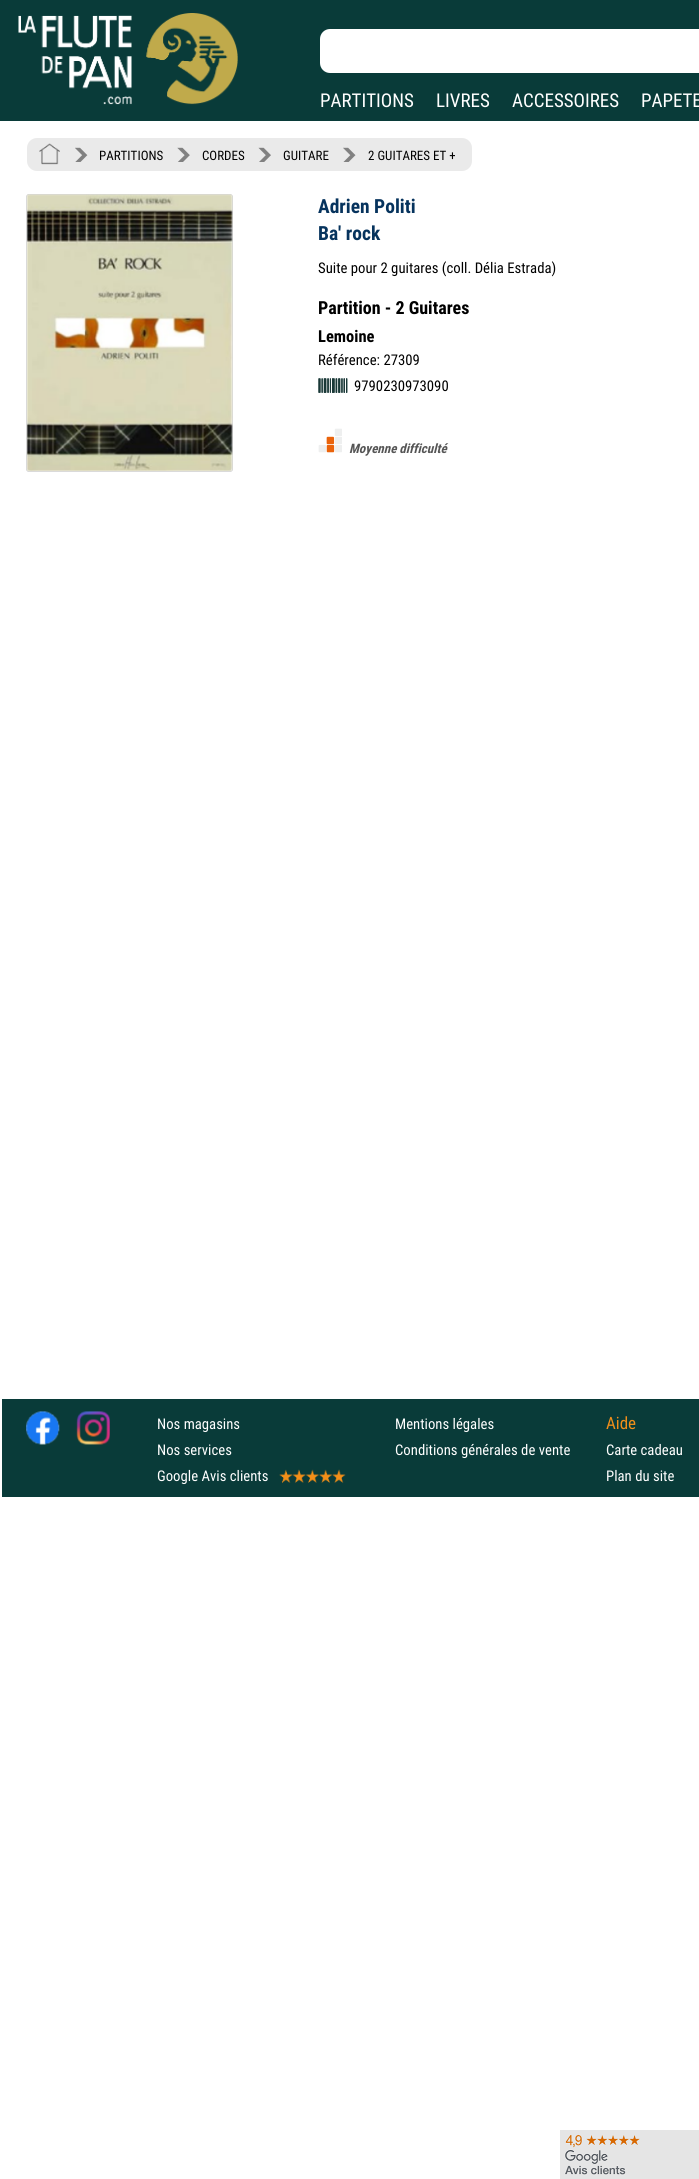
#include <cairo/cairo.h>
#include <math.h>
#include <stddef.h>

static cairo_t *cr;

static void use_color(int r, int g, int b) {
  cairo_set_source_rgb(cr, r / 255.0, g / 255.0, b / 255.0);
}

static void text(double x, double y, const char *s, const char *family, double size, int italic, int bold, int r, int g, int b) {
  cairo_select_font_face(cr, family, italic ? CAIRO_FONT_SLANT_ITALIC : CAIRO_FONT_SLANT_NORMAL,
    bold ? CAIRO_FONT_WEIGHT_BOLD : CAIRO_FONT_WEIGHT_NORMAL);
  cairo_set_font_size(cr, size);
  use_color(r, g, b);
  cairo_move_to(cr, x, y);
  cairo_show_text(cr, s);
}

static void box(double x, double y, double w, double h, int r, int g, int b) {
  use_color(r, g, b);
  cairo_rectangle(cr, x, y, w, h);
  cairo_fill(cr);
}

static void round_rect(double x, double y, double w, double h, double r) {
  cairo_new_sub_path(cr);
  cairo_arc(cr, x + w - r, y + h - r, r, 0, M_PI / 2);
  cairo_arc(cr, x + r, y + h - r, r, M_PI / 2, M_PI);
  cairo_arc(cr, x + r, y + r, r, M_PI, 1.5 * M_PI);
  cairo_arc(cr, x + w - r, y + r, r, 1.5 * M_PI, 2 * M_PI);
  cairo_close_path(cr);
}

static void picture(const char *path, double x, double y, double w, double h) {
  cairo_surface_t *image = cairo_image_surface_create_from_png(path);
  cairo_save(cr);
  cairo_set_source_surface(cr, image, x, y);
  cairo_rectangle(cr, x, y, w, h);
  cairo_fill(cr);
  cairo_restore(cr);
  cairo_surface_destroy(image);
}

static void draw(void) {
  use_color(255, 255, 255);
  cairo_paint(cr);
  box(0, 0, 699, 121, 9, 59, 57);
  picture("img_01.png", 18, 13, 220, 92);
  use_color(255, 255, 255);
  round_rect(320, 29, 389, 44, 10);
  cairo_fill(cr);
  use_color(234, 234, 234);
  round_rect(27, 138, 445, 33, 10);
  cairo_fill(cr);
  picture("img_02.png", 39, 143, 21, 22);
  picture("img_03.png", 75, 147, 13, 15);
  picture("img_04.png", 177, 147, 13, 15);
  picture("img_05.png", 258, 147, 13, 15);
  picture("img_06.png", 343, 147, 13, 15);
  round_rect(26.4, 194.4, 206.2, 277.2, 2.6);
  use_color(209, 209, 209);
  cairo_set_line_width(cr, 0.8);
  cairo_stroke(cr);
  picture("img_07.png", 26, 194, 207, 277);
  picture("img_08.png", 318, 378, 30, 15);
  picture("img_09.png", 318, 428, 24, 25);
  box(2, 1399, 697, 98, 9, 59, 57);
  picture("img_10.png", 26, 1411, 34, 34);
  picture("img_11.png", 76, 1411, 34, 34);
  picture("img_12.png", 279, 1469, 67, 14);
  picture("img_13.png", 560, 2130, 139, 49);
  text(320, 107, "PARTITIONS", "Roboto Condensed", 19, 0, 0, 255, 255, 255);
  text(436, 107, "LIVRES", "Roboto Condensed", 19, 0, 0, 255, 255, 255);
  text(512, 107, "ACCESSOIRES", "Roboto Condensed", 19, 0, 0, 255, 255, 255);
  text(641, 107, "PAPETE", "Roboto Condensed", 19, 0, 0, 255, 255, 255);
  text(99, 160, "PARTITIONS", "Roboto Condensed", 13, 0, 0, 0, 0, 0);
  text(202, 160, "CORDES", "Roboto Condensed", 13, 0, 0, 0, 0, 0);
  text(283, 160, "GUITARE", "Roboto Condensed", 13, 0, 0, 0, 0, 0);
  text(368, 160, "2 GUITARES ET +", "Roboto Condensed", 13, 0, 0, 0, 0, 0);
  text(318, 213, "Adrien Politi", "Roboto Condensed", 19.5, 0, 1, 6, 51, 93);
  text(318, 240, "Ba' rock", "Roboto Condensed", 19.5, 0, 1, 6, 51, 93);
  text(318, 273, "Suite pour 2 guitares (coll. Délia Estrada)", "Roboto Condensed", 14.75, 0, 0, 0, 0, 0);
  text(318, 314, "Partition - 2 Guitares", "Roboto Condensed", 18, 0, 1, 0, 0, 0);
  text(318, 342, "Lemoine", "Roboto Condensed", 16.5, 0, 1, 0, 0, 0);
  text(318, 365, "Référence: 27309", "Roboto Condensed", 14.75, 0, 0, 0, 0, 0);
  text(354, 391, "9790230973090", "Roboto Condensed", 14.75, 0, 0, 0, 0, 0);
  text(349, 453, "Moyenne difficulté", "Roboto Condensed", 13, 1, 1, 85, 85, 85);
  text(157, 1429, "Nos magasins", "Roboto Condensed", 14.75, 0, 0, 255, 255, 255);
  text(157, 1455, "Nos services", "Roboto Condensed", 14.75, 0, 0, 255, 255, 255);
  text(157, 1481, "Google Avis clients", "Roboto Condensed", 14.75, 0, 0, 255, 255, 255);
  text(395, 1429, "Mentions légales", "Roboto Condensed", 14.75, 0, 0, 255, 255, 255);
  text(395, 1455, "Conditions générales de vente", "Roboto Condensed", 14.75, 0, 0, 255, 255, 255);
  text(606, 1429, "Aide", "Roboto Condensed", 17, 0, 0, 241, 143, 26);
  text(606, 1455, "Carte cadeau", "Roboto Condensed", 14.75, 0, 0, 255, 255, 255);
  text(606, 1481, "Plan du site", "Roboto Condensed", 14.75, 0, 0, 255, 255, 255);
}

int main(void) {
  cairo_surface_t *surface = cairo_image_surface_create(CAIRO_FORMAT_RGB24, 699, 2179);
  cr = cairo_create(surface);
  cairo_font_options_t *options = cairo_font_options_create();
  cairo_font_options_set_hint_metrics(options, CAIRO_HINT_METRICS_OFF);
  cairo_font_options_set_hint_style(options, CAIRO_HINT_STYLE_NONE);
  cairo_set_font_options(cr, options);
  cairo_set_miter_limit(cr, 4);
  draw();
  cairo_surface_write_to_png(surface, "out.png");
  cairo_font_options_destroy(options);
  cairo_destroy(cr);
  cairo_surface_destroy(surface);
  return 0;
}
